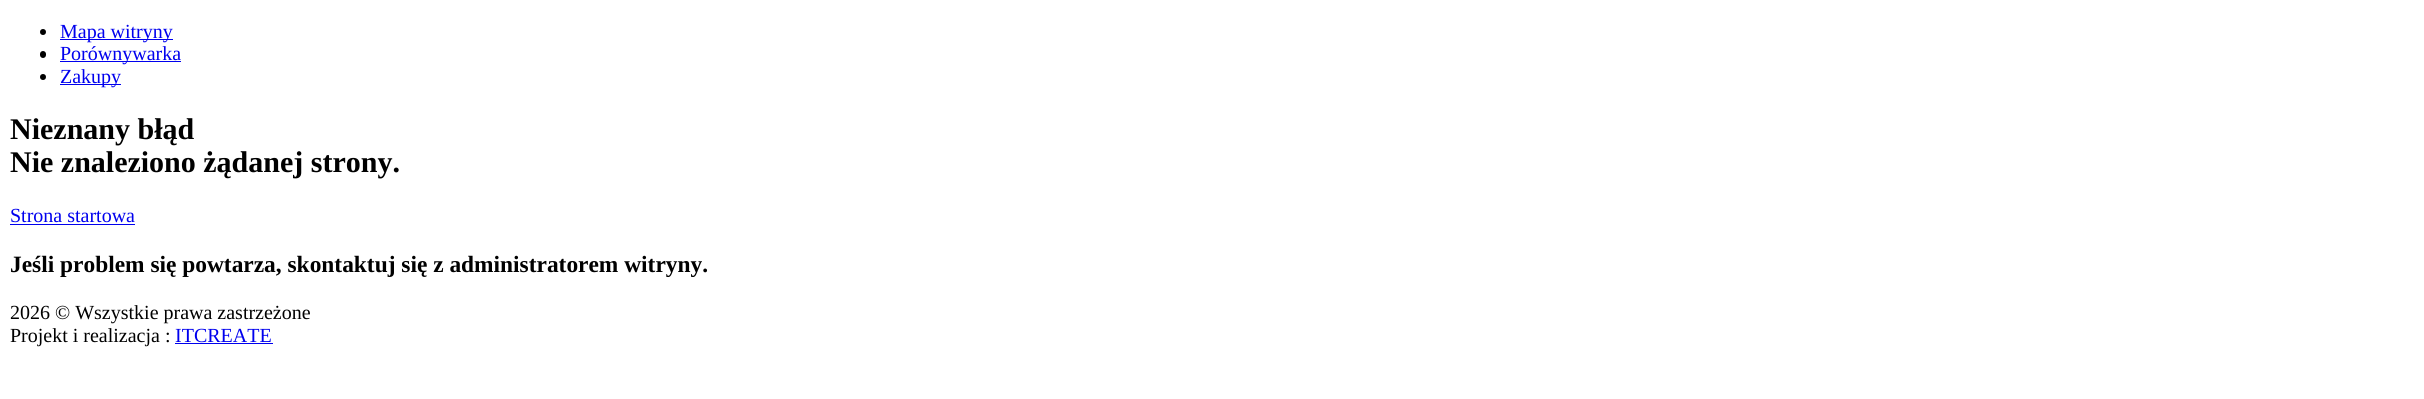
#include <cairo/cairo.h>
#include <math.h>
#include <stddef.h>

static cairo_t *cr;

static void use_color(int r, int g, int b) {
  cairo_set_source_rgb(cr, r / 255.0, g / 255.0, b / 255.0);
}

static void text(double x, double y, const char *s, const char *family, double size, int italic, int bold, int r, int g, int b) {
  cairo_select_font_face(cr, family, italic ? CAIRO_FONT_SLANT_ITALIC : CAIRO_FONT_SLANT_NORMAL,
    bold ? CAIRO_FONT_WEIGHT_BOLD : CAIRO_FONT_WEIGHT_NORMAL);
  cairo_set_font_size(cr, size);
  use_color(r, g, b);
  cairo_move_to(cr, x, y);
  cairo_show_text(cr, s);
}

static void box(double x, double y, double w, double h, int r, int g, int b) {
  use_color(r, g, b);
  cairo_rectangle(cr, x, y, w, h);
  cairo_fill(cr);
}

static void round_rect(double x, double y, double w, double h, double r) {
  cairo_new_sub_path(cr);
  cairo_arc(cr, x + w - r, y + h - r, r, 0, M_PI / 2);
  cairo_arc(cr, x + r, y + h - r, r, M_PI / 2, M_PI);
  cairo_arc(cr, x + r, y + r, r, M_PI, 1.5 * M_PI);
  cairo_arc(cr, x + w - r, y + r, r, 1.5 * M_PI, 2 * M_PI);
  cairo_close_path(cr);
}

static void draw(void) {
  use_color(255, 255, 255);
  cairo_paint(cr);
  use_color(0, 0, 0);
  cairo_arc(cr, 43, 32, 3, 0, 2 * M_PI);
  cairo_fill(cr);
  box(60, 39, 113, 1, 0, 0, 238);
  use_color(0, 0, 0);
  round_rect(40, 51, 6, 7, 3);
  cairo_fill(cr);
  box(60, 61, 121, 1, 0, 0, 238);
  use_color(0, 0, 0);
  cairo_arc(cr, 43, 77, 3, 0, 2 * M_PI);
  cairo_fill(cr);
  box(60, 84, 61, 1, 0, 0, 238);
  box(10, 224, 125, 1, 0, 0, 238);
  box(175, 343, 98, 1, 0, 0, 238);
  text(60, 38, "Mapa witryny", "Liberation Serif", 20, 0, 0, 0, 0, 238);
  text(60, 60, "Porównywarka", "Liberation Serif", 20, 0, 0, 0, 0, 238);
  text(60, 83, "Zakupy", "Liberation Serif", 20, 0, 0, 0, 0, 238);
  text(10, 139, "Nieznany błąd", "Liberation Serif", 30, 0, 1, 0, 0, 0);
  text(10, 172, "Nie znaleziono żądanej strony.", "Liberation Serif", 30, 0, 1, 0, 0, 0);
  text(10, 222, "Strona startowa", "Liberation Serif", 20, 0, 0, 0, 0, 238);
  text(10, 272, "Jeśli problem się powtarza, skontaktuj się z administratorem witryny.", "Liberation Serif", 23.4, 0, 1, 0, 0, 0);
  text(10, 319, "2026 © Wszystkie prawa zastrzeżone", "Liberation Serif", 20, 0, 0, 0, 0, 0);
  text(10, 342, "Projekt i realizacja :", "Liberation Serif", 20, 0, 0, 0, 0, 0);
  text(175, 342, "ITCREATE", "Liberation Serif", 20, 0, 0, 0, 0, 238);
}

int main(void) {
  cairo_surface_t *surface = cairo_image_surface_create(CAIRO_FORMAT_RGB24, 2424, 399);
  cr = cairo_create(surface);
  cairo_font_options_t *options = cairo_font_options_create();
  cairo_font_options_set_hint_metrics(options, CAIRO_HINT_METRICS_OFF);
  cairo_font_options_set_hint_style(options, CAIRO_HINT_STYLE_NONE);
  cairo_set_font_options(cr, options);
  cairo_set_miter_limit(cr, 4);
  draw();
  cairo_surface_write_to_png(surface, "out.png");
  cairo_font_options_destroy(options);
  cairo_destroy(cr);
  cairo_surface_destroy(surface);
  return 0;
}
